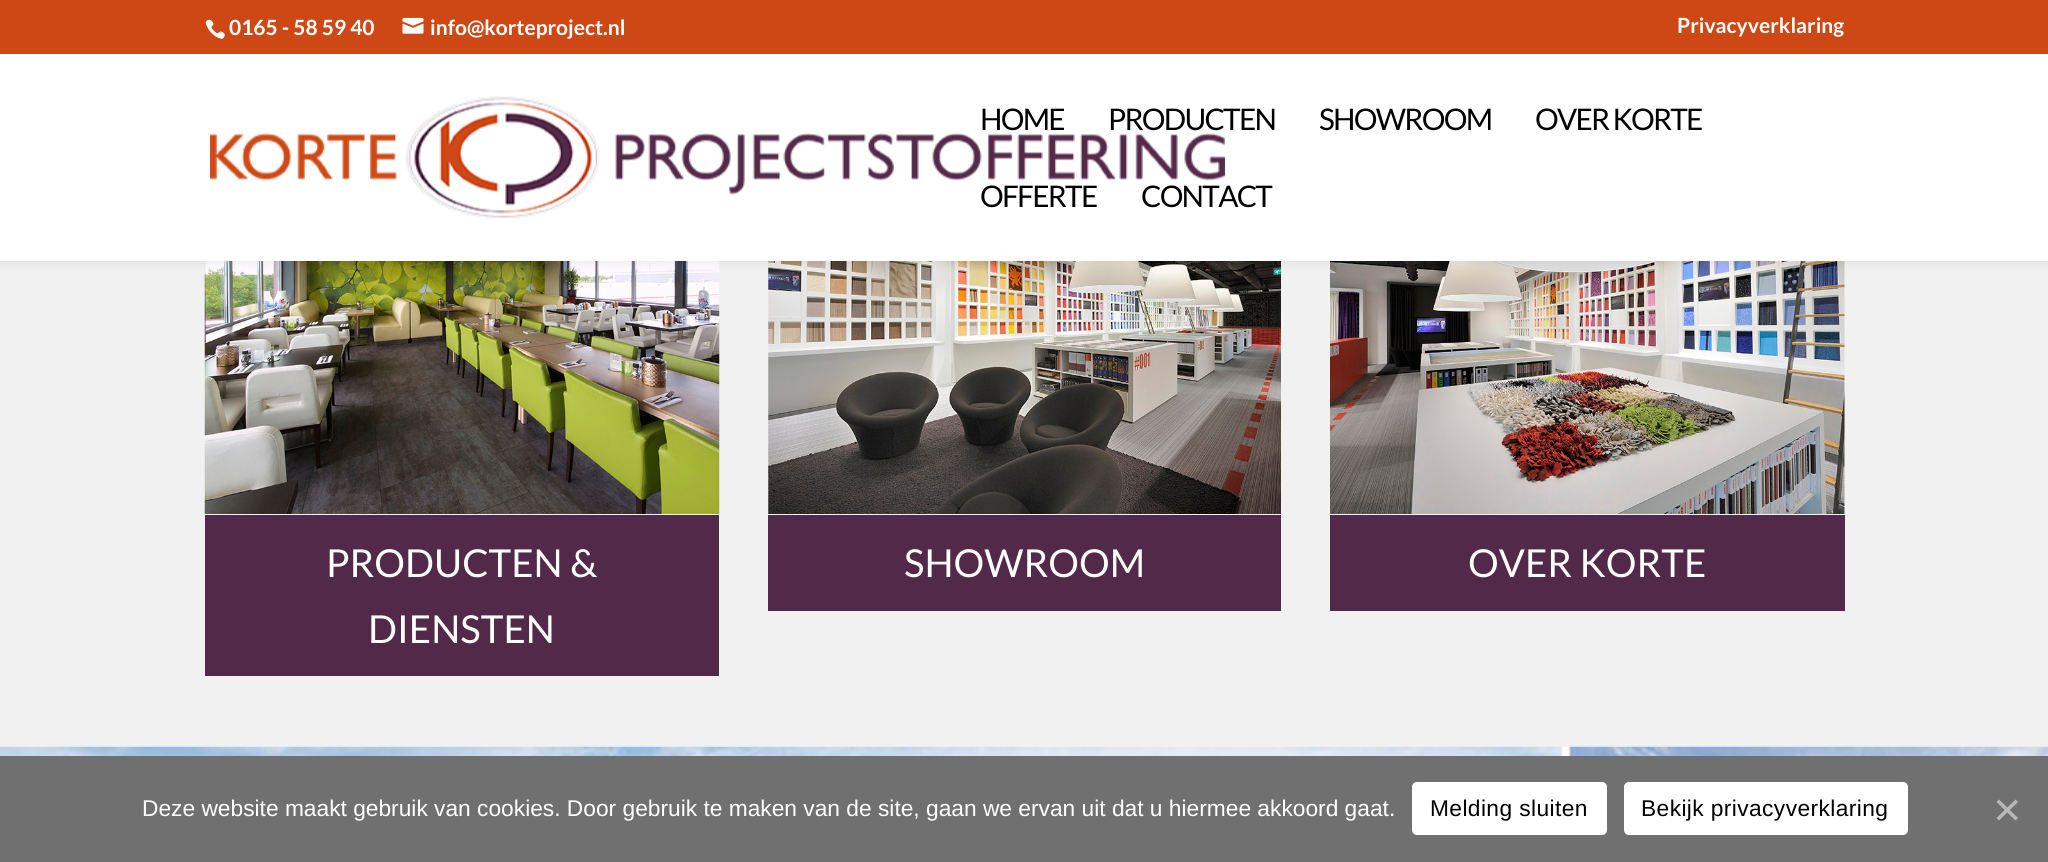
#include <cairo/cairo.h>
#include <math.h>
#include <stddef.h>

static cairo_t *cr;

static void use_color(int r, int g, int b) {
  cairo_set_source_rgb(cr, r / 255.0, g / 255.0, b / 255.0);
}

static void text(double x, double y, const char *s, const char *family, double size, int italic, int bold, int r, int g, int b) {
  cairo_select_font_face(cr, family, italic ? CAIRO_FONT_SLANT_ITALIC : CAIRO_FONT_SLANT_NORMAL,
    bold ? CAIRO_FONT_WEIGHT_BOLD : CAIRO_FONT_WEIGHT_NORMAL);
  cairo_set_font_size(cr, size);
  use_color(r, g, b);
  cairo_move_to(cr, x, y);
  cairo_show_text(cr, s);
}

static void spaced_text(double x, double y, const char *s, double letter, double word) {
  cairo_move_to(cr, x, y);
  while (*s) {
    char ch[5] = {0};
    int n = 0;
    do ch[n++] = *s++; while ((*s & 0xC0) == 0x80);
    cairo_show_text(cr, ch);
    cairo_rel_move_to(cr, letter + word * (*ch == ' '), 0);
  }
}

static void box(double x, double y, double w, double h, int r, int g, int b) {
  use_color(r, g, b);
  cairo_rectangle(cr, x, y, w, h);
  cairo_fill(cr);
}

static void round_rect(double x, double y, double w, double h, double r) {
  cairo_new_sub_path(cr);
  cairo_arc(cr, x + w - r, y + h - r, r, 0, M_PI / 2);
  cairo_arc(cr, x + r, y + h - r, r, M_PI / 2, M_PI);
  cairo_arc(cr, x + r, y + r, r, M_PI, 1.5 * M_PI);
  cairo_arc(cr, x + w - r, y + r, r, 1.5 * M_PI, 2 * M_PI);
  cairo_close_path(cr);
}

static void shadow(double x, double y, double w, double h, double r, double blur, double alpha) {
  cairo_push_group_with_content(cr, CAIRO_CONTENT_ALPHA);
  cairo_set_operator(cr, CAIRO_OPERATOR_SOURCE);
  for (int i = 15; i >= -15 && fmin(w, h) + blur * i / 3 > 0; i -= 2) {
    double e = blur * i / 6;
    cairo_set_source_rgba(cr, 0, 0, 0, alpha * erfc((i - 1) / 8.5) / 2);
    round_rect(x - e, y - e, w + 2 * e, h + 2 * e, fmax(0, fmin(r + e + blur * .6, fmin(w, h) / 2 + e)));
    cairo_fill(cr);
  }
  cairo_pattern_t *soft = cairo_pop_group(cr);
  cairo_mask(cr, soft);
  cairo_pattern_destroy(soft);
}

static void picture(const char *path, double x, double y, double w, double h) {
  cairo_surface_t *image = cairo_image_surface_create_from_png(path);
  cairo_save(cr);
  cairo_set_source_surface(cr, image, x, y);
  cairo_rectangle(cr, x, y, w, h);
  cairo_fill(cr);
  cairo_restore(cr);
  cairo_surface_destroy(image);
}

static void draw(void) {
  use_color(241, 241, 241);
  cairo_paint(cr);
  picture("img_04.png", 204, 261, 516, 253);
  picture("img_05.png", 768, 261, 513, 253);
  picture("img_06.png", 1330, 261, 515, 253);
  use_color(0, 0, 0);
  shadow(0, 54, 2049, 207, 0, 6, 0.1);
  box(0, 0, 2048, 54, 206, 72, 22);
  picture("img_01.png", 205, 19, 20, 20);
  picture("img_02.png", 402, 17, 22, 17);
  box(0, 54, 2048, 207, 255, 255, 255);
  picture("img_03.png", 210, 96, 1015, 123);
  box(205, 515, 514, 161, 83, 41, 73);
  box(768, 515, 513, 96, 83, 41, 73);
  box(1330, 515, 515, 96, 83, 41, 73);
  picture("img_07.png", 0, 746, 2048, 10);
  box(0, 756, 2048, 106, 112, 112, 112);
  use_color(255, 255, 255);
  round_rect(1412, 782, 195, 53, 5);
  cairo_fill(cr);
  round_rect(1624, 782, 284, 53, 5);
  cairo_fill(cr);
  use_color(184, 184, 184);
  cairo_new_path(cr);
  cairo_move_to(cr, 2015.5, 799.5);
  cairo_line_to(cr, 2018, 802);
  cairo_line_to(cr, 1999, 820.5);
  cairo_line_to(cr, 1996.5, 818);
  cairo_close_path(cr);
  cairo_fill(cr);
  cairo_new_path(cr);
  cairo_move_to(cr, 1996.5, 802);
  cairo_line_to(cr, 1999, 799.5);
  cairo_line_to(cr, 2018, 818);
  cairo_line_to(cr, 2015.5, 820.5);
  cairo_close_path(cr);
  cairo_fill(cr);
  text(229, 35, "0165 - 58 59 40", "Lato", 21, 0, 1, 255, 255, 255);
  text(430, 35, "info@korteproject.nl", "Lato", 21, 0, 1, 255, 255, 255);
  text(1677, 33, "Privacyverklaring", "Lato", 21, 0, 1, 255, 255, 255);
  cairo_select_font_face(cr, "Lato", CAIRO_FONT_SLANT_NORMAL, CAIRO_FONT_WEIGHT_NORMAL);
  cairo_set_font_size(cr, 29.75);
  use_color(0, 0, 0);
  spaced_text(980, 130, "HOME", -1.75, 0);
  spaced_text(1108, 130, "PRODUCTEN", -1.75, 0);
  spaced_text(1319, 130, "SHOWROOM", -1.75, 0);
  spaced_text(1535, 130, "OVER KORTE", -1.75, 0);
  spaced_text(980, 207, "OFFERTE", -1.75, 0);
  spaced_text(1141, 207, "CONTACT", -1.75, 0);
  text(326, 577, "PRODUCTEN &", "Lato", 38.5, 0, 0, 255, 255, 255);
  text(368, 643, "DIENSTEN", "Lato", 38.5, 0, 0, 255, 255, 255);
  text(904, 577, "SHOWROOM", "Lato", 38.5, 0, 0, 255, 255, 255);
  text(1468, 577, "OVER KORTE", "Lato", 38.5, 0, 0, 255, 255, 255);
  text(142, 816, "Deze website maakt gebruik van cookies. Door gebruik te maken van de site, gaan we ervan uit dat u hiermee akkoord gaat.", "Liberation Sans", 22.75, 0, 0, 255, 255, 255);
  use_color(0, 0, 0);
  spaced_text(1430, 816, "Melding sluiten", 0.4, 0);
  spaced_text(1641, 816, "Bekijk privacyverklaring", 0.4, 0);
}

int main(void) {
  cairo_surface_t *surface = cairo_image_surface_create(CAIRO_FORMAT_RGB24, 2048, 862);
  cr = cairo_create(surface);
  cairo_font_options_t *options = cairo_font_options_create();
  cairo_font_options_set_hint_metrics(options, CAIRO_HINT_METRICS_OFF);
  cairo_font_options_set_hint_style(options, CAIRO_HINT_STYLE_NONE);
  cairo_set_font_options(cr, options);
  cairo_set_miter_limit(cr, 4);
  draw();
  cairo_surface_write_to_png(surface, "out.png");
  cairo_font_options_destroy(options);
  cairo_destroy(cr);
  cairo_surface_destroy(surface);
  return 0;
}
